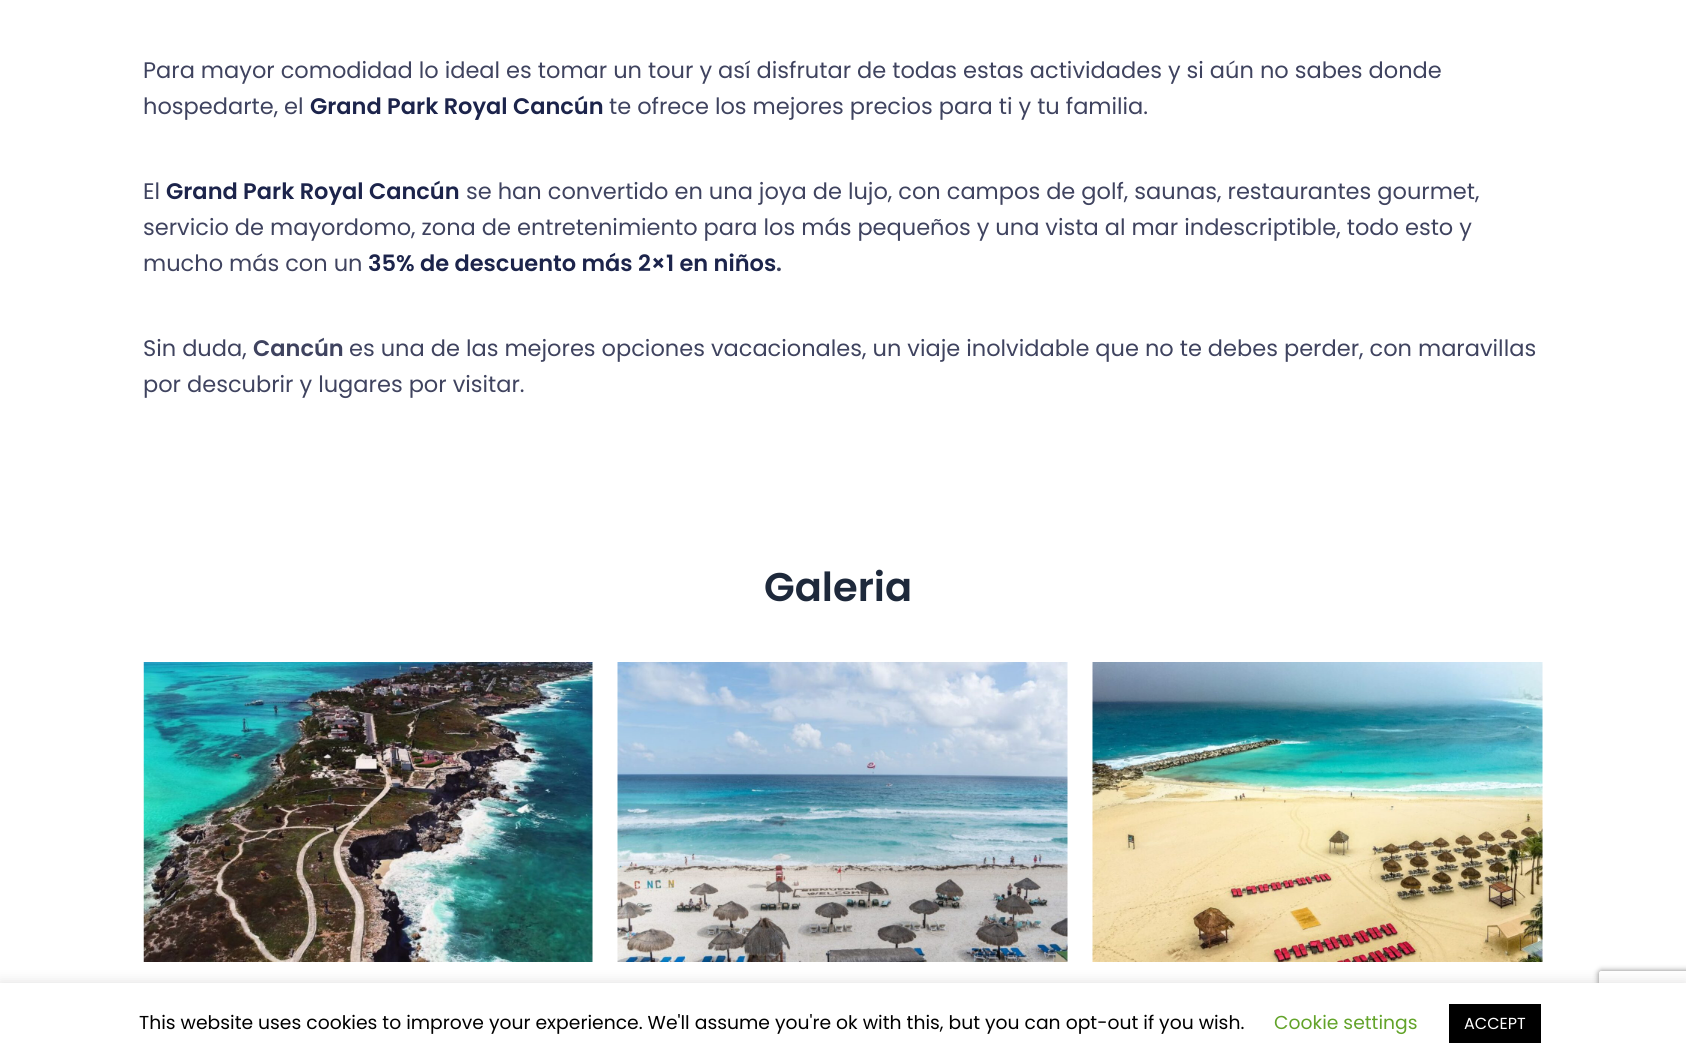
#include <cairo/cairo.h>
#include <math.h>
#include <stddef.h>

static cairo_t *cr;

static void use_color(int r, int g, int b) {
  cairo_set_source_rgb(cr, r / 255.0, g / 255.0, b / 255.0);
}

static void text(double x, double y, const char *s, const char *family, double size, int italic, int bold, int r, int g, int b) {
  cairo_select_font_face(cr, family, italic ? CAIRO_FONT_SLANT_ITALIC : CAIRO_FONT_SLANT_NORMAL,
    bold ? CAIRO_FONT_WEIGHT_BOLD : CAIRO_FONT_WEIGHT_NORMAL);
  cairo_set_font_size(cr, size);
  use_color(r, g, b);
  cairo_move_to(cr, x, y);
  cairo_show_text(cr, s);
}

static void box(double x, double y, double w, double h, int r, int g, int b) {
  use_color(r, g, b);
  cairo_rectangle(cr, x, y, w, h);
  cairo_fill(cr);
}

static void round_rect(double x, double y, double w, double h, double r) {
  cairo_new_sub_path(cr);
  cairo_arc(cr, x + w - r, y + h - r, r, 0, M_PI / 2);
  cairo_arc(cr, x + r, y + h - r, r, M_PI / 2, M_PI);
  cairo_arc(cr, x + r, y + r, r, M_PI, 1.5 * M_PI);
  cairo_arc(cr, x + w - r, y + r, r, 1.5 * M_PI, 2 * M_PI);
  cairo_close_path(cr);
}

static void shadow(double x, double y, double w, double h, double r, double blur, double alpha) {
  cairo_push_group_with_content(cr, CAIRO_CONTENT_ALPHA);
  cairo_set_operator(cr, CAIRO_OPERATOR_SOURCE);
  for (int i = 15; i >= -15 && fmin(w, h) + blur * i / 3 > 0; i -= 2) {
    double e = blur * i / 6;
    cairo_set_source_rgba(cr, 0, 0, 0, alpha * erfc((i - 1) / 8.5) / 2);
    round_rect(x - e, y - e, w + 2 * e, h + 2 * e, fmax(0, fmin(r + e + blur * .6, fmin(w, h) / 2 + e)));
    cairo_fill(cr);
  }
  cairo_pattern_t *soft = cairo_pop_group(cr);
  cairo_mask(cr, soft);
  cairo_pattern_destroy(soft);
}

static void picture(const char *path, double x, double y, double w, double h) {
  cairo_surface_t *image = cairo_image_surface_create_from_png(path);
  cairo_save(cr);
  cairo_set_source_surface(cr, image, x, y);
  cairo_rectangle(cr, x, y, w, h);
  cairo_fill(cr);
  cairo_restore(cr);
  cairo_surface_destroy(image);
}

static void draw(void) {
  use_color(255, 255, 255);
  cairo_paint(cr);
  picture("img_01.png", 143, 662, 450, 300);
  picture("img_02.png", 617, 662, 451, 300);
  picture("img_03.png", 1092, 662, 451, 300);
  use_color(172, 171, 171);
  shadow(0, 981, 1686, 82, 0, 6, 0.3);
  cairo_save(cr);
  cairo_set_fill_rule(cr, CAIRO_FILL_RULE_EVEN_ODD);
  cairo_new_path(cr);
  cairo_move_to(cr, 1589, 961);
  cairo_line_to(cr, 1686, 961);
  cairo_line_to(cr, 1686, 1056);
  cairo_line_to(cr, 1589, 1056);
  cairo_close_path(cr);
  cairo_move_to(cr, 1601.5, 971);
  cairo_line_to(cr, 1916.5, 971);
  cairo_curve_to(cr, 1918, 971, 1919, 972, 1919, 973.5);
  cairo_line_to(cr, 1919, 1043.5);
  cairo_curve_to(cr, 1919, 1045, 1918, 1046, 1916.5, 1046);
  cairo_line_to(cr, 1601.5, 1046);
  cairo_curve_to(cr, 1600, 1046, 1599, 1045, 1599, 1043.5);
  cairo_line_to(cr, 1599, 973.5);
  cairo_curve_to(cr, 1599, 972, 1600, 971, 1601.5, 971);
  cairo_close_path(cr);
  cairo_clip(cr);
  use_color(128, 128, 128);
  shadow(1599, 971, 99, 75, 2.5, 3, 1);
  cairo_restore(cr);
  box(0, 983, 1686, 80, 255, 255, 255);
  box(1449, 1004, 92, 39, 0, 0, 0);
  text(143, 78, "Para mayor comodidad lo ideal es tomar un tour y así disfrutar de todas estas actividades y si aún no sabes donde", "Poppins", 22.5, 0, 0, 63, 67, 95);
  text(143, 114, "hospedarte, el", "Poppins", 22.5, 0, 0, 63, 67, 95);
  text(310, 114, "Grand Park Royal Cancún", "Poppins SemiBold", 22.5, 0, 0, 28, 36, 75);
  text(609, 114, "te ofrece los mejores precios para ti y tu familia.", "Poppins", 22.5, 0, 0, 63, 67, 95);
  text(143, 199, "El", "Poppins", 22.5, 0, 0, 63, 67, 95);
  text(166, 199, "Grand Park Royal Cancún", "Poppins SemiBold", 22.5, 0, 0, 28, 36, 75);
  text(466, 199, "se han convertido en una joya de lujo, con campos de golf, saunas, restaurantes gourmet,", "Poppins", 22.5, 0, 0, 63, 67, 95);
  text(143, 235, "servicio de mayordomo, zona de entretenimiento para los más pequeños y una vista al mar indescriptible, todo esto y", "Poppins", 22.5, 0, 0, 63, 67, 95);
  text(143, 271, "mucho más con un", "Poppins", 22.5, 0, 0, 63, 67, 95);
  text(368, 271, "35% de descuento más 2×1 en niños", "Poppins SemiBold", 22.5, 0, 0, 28, 36, 75);
  text(776, 271, ".", "Poppins SemiBold", 22.5, 0, 0, 63, 67, 95);
  text(143, 356, "Sin duda,", "Poppins", 22.5, 0, 0, 63, 67, 95);
  text(253, 356, "Cancún", "Poppins SemiBold", 22.5, 0, 0, 63, 67, 95);
  text(349, 356, "es una de las mejores opciones vacacionales, un viaje inolvidable que no te debes perder, con maravillas", "Poppins", 22.5, 0, 0, 63, 67, 95);
  text(143, 392, "por descubrir y lugares por visitar.", "Poppins", 22.5, 0, 0, 63, 67, 95);
  text(764, 601, "Galeria", "Poppins SemiBold", 40, 0, 0, 30, 41, 59);
  text(139, 1029, "This website uses cookies to improve your experience. We'll assume you're ok with this, but you can opt-out if you wish.", "Poppins", 18.75, 0, 0, 0, 0, 0);
  text(1274, 1029, "Cookie settings", "Poppins", 18.75, 0, 0, 98, 163, 41);
  text(1464, 1029, "ACCEPT", "Poppins", 16, 0, 0, 255, 255, 255);
}

int main(void) {
  cairo_surface_t *surface = cairo_image_surface_create(CAIRO_FORMAT_RGB24, 1686, 1063);
  cr = cairo_create(surface);
  cairo_font_options_t *options = cairo_font_options_create();
  cairo_font_options_set_hint_metrics(options, CAIRO_HINT_METRICS_OFF);
  cairo_font_options_set_hint_style(options, CAIRO_HINT_STYLE_NONE);
  cairo_set_font_options(cr, options);
  cairo_set_miter_limit(cr, 4);
  draw();
  cairo_surface_write_to_png(surface, "out.png");
  cairo_font_options_destroy(options);
  cairo_destroy(cr);
  cairo_surface_destroy(surface);
  return 0;
}
